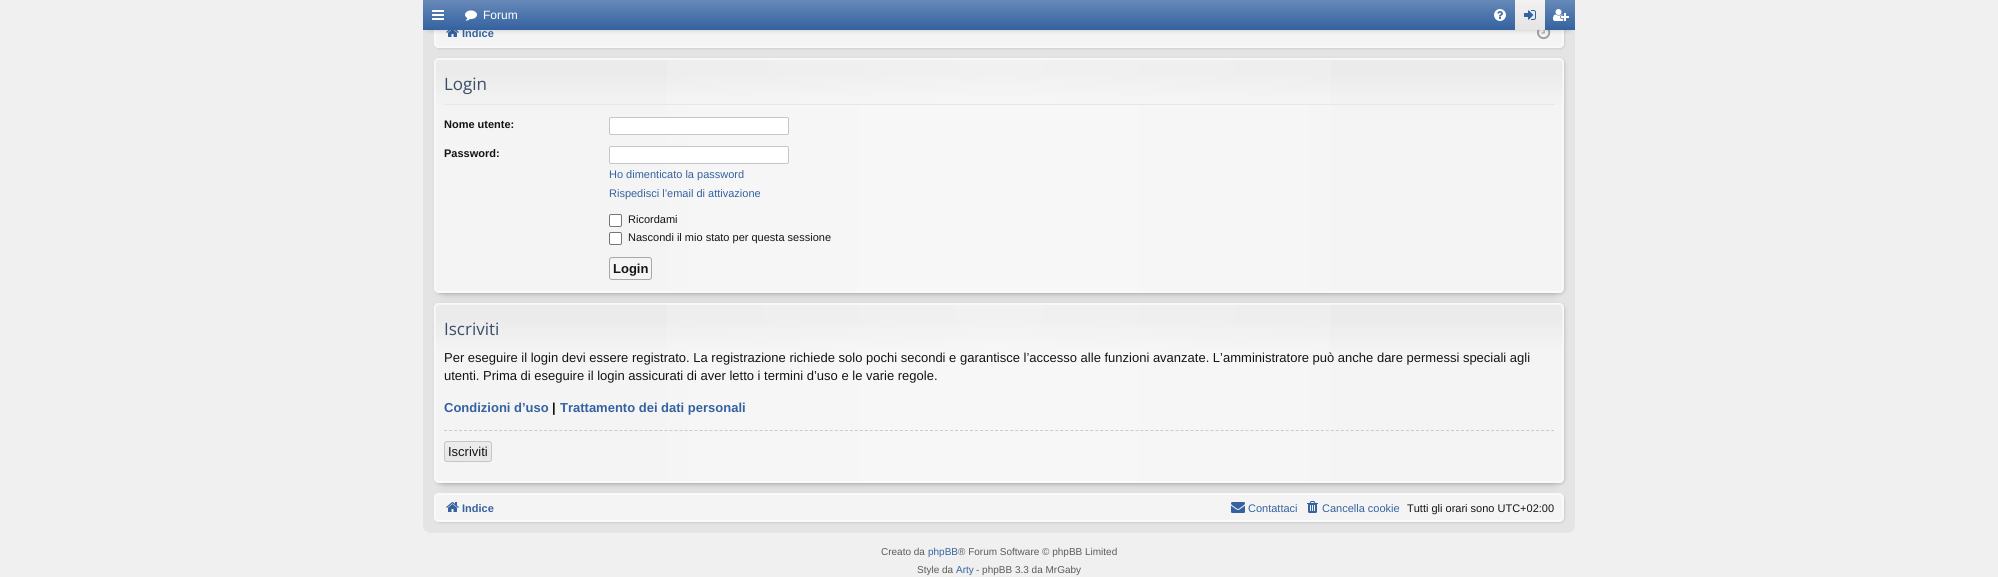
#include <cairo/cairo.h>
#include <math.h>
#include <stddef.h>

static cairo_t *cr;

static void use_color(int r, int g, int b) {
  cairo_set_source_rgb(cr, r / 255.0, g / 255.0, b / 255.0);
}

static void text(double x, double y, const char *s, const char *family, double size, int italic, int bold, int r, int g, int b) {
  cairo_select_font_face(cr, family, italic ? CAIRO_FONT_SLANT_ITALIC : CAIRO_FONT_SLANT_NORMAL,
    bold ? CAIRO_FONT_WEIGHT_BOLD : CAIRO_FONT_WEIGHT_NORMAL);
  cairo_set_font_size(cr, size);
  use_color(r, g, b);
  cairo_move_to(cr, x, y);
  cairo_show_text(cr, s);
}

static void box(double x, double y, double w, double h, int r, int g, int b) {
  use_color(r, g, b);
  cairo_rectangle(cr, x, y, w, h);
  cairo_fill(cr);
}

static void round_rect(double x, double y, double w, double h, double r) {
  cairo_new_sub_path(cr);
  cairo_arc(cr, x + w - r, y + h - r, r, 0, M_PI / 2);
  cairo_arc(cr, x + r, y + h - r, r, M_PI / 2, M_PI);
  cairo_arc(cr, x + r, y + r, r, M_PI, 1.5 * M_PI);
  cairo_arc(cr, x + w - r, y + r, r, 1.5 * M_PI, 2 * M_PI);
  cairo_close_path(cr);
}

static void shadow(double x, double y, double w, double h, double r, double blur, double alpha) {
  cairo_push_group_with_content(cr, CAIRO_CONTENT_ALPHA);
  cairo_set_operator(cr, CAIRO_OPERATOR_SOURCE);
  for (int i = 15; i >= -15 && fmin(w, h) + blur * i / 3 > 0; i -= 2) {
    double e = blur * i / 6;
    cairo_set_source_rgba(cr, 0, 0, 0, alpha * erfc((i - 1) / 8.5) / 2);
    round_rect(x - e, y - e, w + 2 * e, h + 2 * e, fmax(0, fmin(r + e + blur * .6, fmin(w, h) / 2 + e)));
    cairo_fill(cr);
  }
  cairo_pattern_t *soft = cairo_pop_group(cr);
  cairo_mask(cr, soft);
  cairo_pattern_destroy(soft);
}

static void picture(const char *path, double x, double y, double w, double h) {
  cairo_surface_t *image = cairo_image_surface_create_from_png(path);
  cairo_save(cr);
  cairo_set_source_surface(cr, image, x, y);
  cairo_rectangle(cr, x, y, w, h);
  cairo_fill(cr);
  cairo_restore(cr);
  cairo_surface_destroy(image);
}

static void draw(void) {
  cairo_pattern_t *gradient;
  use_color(240, 240, 240);
  cairo_paint(cr);
  use_color(228, 228, 228);
  round_rect(423.5, 7.5, 1151, 525, 7.5);
  cairo_fill_preserve(cr);
  cairo_set_line_width(cr, 1);
  cairo_stroke(cr);
  use_color(0, 0, 0);
  shadow(435, 19, 1130, 30, 5, 1, 0.1);
  use_color(244, 244, 244);
  round_rect(434, 18, 1130, 30, 5);
  cairo_fill(cr);
  round_rect(435.5, 19.5, 1127, 27, 3.5);
  use_color(250, 250, 250);
  cairo_stroke(cr);
  round_rect(434.5, 18.5, 1129, 29, 4.5);
  use_color(249, 249, 249);
  cairo_stroke(cr);
  picture("img_06.png", 446, 30, 13, 7);
  picture("img_07.png", 1537, 30, 14, 10);
  use_color(0, 0, 0);
  shadow(428, 10, 1142, 20, 0, 2.5, 0.2);
  shadow(444, 78, 1110, 215, 0, 5, 0.2);
  shadow(435, 59, 1130, 235, 5, 1.5, 0.15);
  use_color(244, 244, 244);
  round_rect(434, 58, 1130, 235, 5);
  cairo_fill(cr);
  cairo_save(cr);
  round_rect(434, 58, 1130, 235, 5);
  cairo_clip(cr);
  gradient = cairo_pattern_create_linear(999, 59, 999, 292);
  cairo_pattern_add_color_stop_rgba(gradient, 0, 0.8, 0.8, 0.8, 0.2);
  cairo_pattern_add_color_stop_rgba(gradient, 0.04, 0.8, 0.8, 0.8, 0.25);
  cairo_pattern_add_color_stop_rgba(gradient, 0.21, 0.8, 0.8, 0.8, 0);
  cairo_set_source(cr, gradient);
  cairo_pattern_destroy(gradient);
  cairo_rectangle(cr, 434, 59, 1130, 46);
  cairo_fill(cr);
  cairo_restore(cr);
  gradient = cairo_pattern_create_linear(435, 176, 1563, 175);
  cairo_pattern_add_color_stop_rgba(gradient, 0, 1, 1, 1, 0);
  cairo_pattern_add_color_stop_rgba(gradient, 0.5, 1, 1, 1, 0.3);
  cairo_pattern_add_color_stop_rgba(gradient, 1, 1, 1, 1, 0);
  cairo_set_source(cr, gradient);
  cairo_pattern_destroy(gradient);
  cairo_rectangle(cr, 667, 59, 664, 233);
  cairo_fill(cr);
  round_rect(435.5, 59.5, 1127, 232, 3.5);
  cairo_set_source_rgba(cr, 1, 1, 1, 0.5);
  cairo_stroke(cr);
  round_rect(434.5, 58.5, 1129, 234, 4.5);
  use_color(249, 249, 249);
  cairo_stroke(cr);
  box(444, 104, 1110, 1, 231, 231, 231);
  use_color(255, 255, 255);
  round_rect(609.5, 117.5, 179, 17, 1.5);
  cairo_fill_preserve(cr);
  use_color(198, 198, 198);
  cairo_stroke(cr);
  use_color(255, 255, 255);
  round_rect(609.5, 146.5, 179, 17, 1.5);
  cairo_fill_preserve(cr);
  use_color(198, 198, 198);
  cairo_stroke(cr);
  use_color(255, 255, 255);
  round_rect(609.5, 214.5, 12, 12, 1.5);
  cairo_fill_preserve(cr);
  use_color(118, 118, 118);
  cairo_stroke(cr);
  use_color(255, 255, 255);
  round_rect(609.5, 232.5, 12, 12, 1.5);
  cairo_fill_preserve(cr);
  use_color(118, 118, 118);
  cairo_stroke(cr);
  round_rect(609.5, 257.5, 42, 22, 2.5);
  use_color(168, 168, 168);
  cairo_stroke(cr);
  use_color(0, 0, 0);
  shadow(444, 323, 1110, 160, 0, 5, 0.2);
  shadow(435, 304, 1130, 180, 5, 1.5, 0.15);
  use_color(244, 244, 244);
  round_rect(434, 303, 1130, 180, 5);
  cairo_fill(cr);
  cairo_save(cr);
  round_rect(434, 303, 1130, 180, 5);
  cairo_clip(cr);
  gradient = cairo_pattern_create_linear(999, 304, 999, 482);
  cairo_pattern_add_color_stop_rgba(gradient, 0, 0.8, 0.8, 0.8, 0.2);
  cairo_pattern_add_color_stop_rgba(gradient, 0.06, 0.8, 0.8, 0.8, 0.25);
  cairo_pattern_add_color_stop_rgba(gradient, 0.28, 0.8, 0.8, 0.8, 0);
  cairo_set_source(cr, gradient);
  cairo_pattern_destroy(gradient);
  cairo_rectangle(cr, 434, 304, 1130, 46);
  cairo_fill(cr);
  cairo_restore(cr);
  gradient = cairo_pattern_create_linear(435, 393, 1563, 393);
  cairo_pattern_add_color_stop_rgba(gradient, 0, 1, 1, 1, 0);
  cairo_pattern_add_color_stop_rgba(gradient, 0.5, 1, 1, 1, 0.3);
  cairo_pattern_add_color_stop_rgba(gradient, 1, 1, 1, 1, 0);
  cairo_set_source(cr, gradient);
  cairo_pattern_destroy(gradient);
  cairo_rectangle(cr, 667, 304, 664, 178);
  cairo_fill(cr);
  round_rect(435.5, 304.5, 1127, 177, 3.5);
  cairo_set_source_rgba(cr, 1, 1, 1, 0.5);
  cairo_stroke(cr);
  round_rect(434.5, 303.5, 1129, 179, 4.5);
  use_color(249, 249, 249);
  cairo_stroke(cr);
  cairo_new_path(cr);
  cairo_move_to(cr, 444, 430.5);
  cairo_line_to(cr, 1554, 430.5);
  use_color(203, 203, 203);
  cairo_set_dash(cr, (double[]){3, 2.01}, 2, 0);
  cairo_stroke(cr);
  use_color(232, 232, 232);
  round_rect(444, 441, 48, 21, 3);
  cairo_fill(cr);
  gradient = cairo_pattern_create_linear(468, 442, 468, 461);
  cairo_pattern_add_color_stop_rgba(gradient, 0, 1, 1, 1, 0.2);
  cairo_pattern_add_color_stop_rgba(gradient, 1, 1, 1, 1, 0);
  cairo_set_source(cr, gradient);
  cairo_pattern_destroy(gradient);
  cairo_rectangle(cr, 444, 442, 48, 8);
  cairo_fill(cr);
  round_rect(444.5, 441.5, 47, 20, 2.5);
  use_color(198, 198, 198);
  cairo_set_dash(cr, NULL, 0, 0);
  cairo_stroke(cr);
  use_color(0, 0, 0);
  shadow(435, 494, 1130, 29, 5, 1, 0.1);
  use_color(244, 244, 244);
  round_rect(434, 493, 1130, 29, 5);
  cairo_fill(cr);
  round_rect(435.5, 494.5, 1127, 26, 3.5);
  use_color(250, 250, 250);
  cairo_stroke(cr);
  round_rect(434.5, 493.5, 1129, 28, 4.5);
  use_color(249, 249, 249);
  cairo_stroke(cr);
  picture("img_08.png", 446, 502, 13, 10);
  picture("img_09.png", 1231, 502, 14, 11);
  picture("img_10.png", 1307, 501, 11, 12);
  text(462, 37, "Indice", "Liberation Sans", 11, 0, 1, 52, 98, 160);
  gradient = cairo_pattern_create_linear(999, 0, 999, 30);
  cairo_pattern_add_color_stop_rgba(gradient, 0, 0.404, 0.537, 0.722, 1);
  cairo_pattern_add_color_stop_rgba(gradient, 1, 0.204, 0.384, 0.627, 1);
  cairo_set_source(cr, gradient);
  cairo_pattern_destroy(gradient);
  cairo_rectangle(cr, 423, 0, 1152, 30);
  cairo_fill(cr);
  picture("img_05.png", 1553, 9, 16, 12);
  gradient = cairo_pattern_create_linear(1530, 0, 1530, 30);
  cairo_pattern_add_color_stop_rgba(gradient, 0, 0.949, 0.949, 0.949, 1);
  cairo_pattern_add_color_stop_rgba(gradient, 1, 0.894, 0.894, 0.894, 1);
  cairo_set_source(cr, gradient);
  cairo_pattern_destroy(gradient);
  cairo_rectangle(cr, 1515, 0, 30, 30);
  cairo_fill(cr);
  picture("img_04.png", 1524, 10, 12, 10);
  picture("img_03.png", 1494, 9, 12, 12);
  picture("img_02.png", 465, 10, 12, 11);
  text(483, 19, "Forum", "Liberation Sans", 12, 0, 0, 255, 255, 255);
  picture("img_01.png", 432, 10, 12, 10);
  text(444, 90, "Login", "Open Sans", 17, 0, 0, 60, 77, 101);
  text(444, 128, "Nome utente:", "Liberation Sans", 11, 0, 1, 20, 20, 20);
  text(444, 157, "Password:", "Liberation Sans", 11, 0, 1, 20, 20, 20);
  text(609, 178, "Ho dimenticato la password", "Liberation Sans", 11, 0, 0, 52, 98, 160);
  text(609, 197, "Rispedisci l’email di attivazione", "Liberation Sans", 11, 0, 0, 52, 98, 160);
  text(628, 223, "Ricordami", "Liberation Sans", 11, 0, 0, 20, 20, 20);
  text(628, 241, "Nascondi il mio stato per questa sessione", "Liberation Sans", 11, 0, 0, 20, 20, 20);
  text(613, 273, "Login", "Liberation Sans", 13, 0, 1, 20, 20, 20);
  text(444, 335, "Iscriviti", "Open Sans", 17, 0, 0, 60, 77, 101);
  text(444, 362, "Per eseguire il login devi essere registrato. La registrazione richiede solo pochi secondi e garantisce l’accesso alle funzioni avanzate. L’amministratore può anche dare permessi speciali agli", "Liberation Sans", 13, 0, 0, 20, 20, 20);
  text(444, 380, "utenti. Prima di eseguire il login assicurati di aver letto i termini d’uso e le varie regole.", "Liberation Sans", 13, 0, 0, 20, 20, 20);
  text(444, 412, "Condizioni d’uso", "Liberation Sans", 13, 0, 1, 52, 98, 160);
  text(552, 412, "|", "Liberation Sans", 13, 0, 1, 20, 20, 20);
  text(560, 412, "Trattamento dei dati personali", "Liberation Sans", 13, 0, 1, 52, 98, 160);
  text(448, 456, "Iscriviti", "Liberation Sans", 13, 0, 0, 20, 20, 20);
  text(462, 512, "Indice", "Liberation Sans", 11, 0, 1, 52, 98, 160);
  text(1248, 512, "Contattaci", "Liberation Sans", 11, 0, 0, 52, 98, 160);
  text(1322, 512, "Cancella cookie", "Liberation Sans", 11, 0, 0, 52, 98, 160);
  text(1407, 512, "Tutti gli orari sono UTC+02:00", "Liberation Sans", 11, 0, 0, 20, 20, 20);
  text(881, 555, "Creato da", "Liberation Sans", 10, 0, 0, 91, 91, 91);
  text(928, 555, "phpBB", "Liberation Sans", 10, 0, 0, 52, 98, 160);
  text(958, 555, "® Forum Software © phpBB Limited", "Liberation Sans", 10, 0, 0, 91, 91, 91);
  text(917, 573, "Style da", "Liberation Sans", 10, 0, 0, 91, 91, 91);
  text(956, 573, "Arty", "Liberation Sans", 10, 0, 0, 52, 98, 160);
  text(976, 573, "- phpBB 3.3 da MrGaby", "Liberation Sans", 10, 0, 0, 91, 91, 91);
}

int main(void) {
  cairo_surface_t *surface = cairo_image_surface_create(CAIRO_FORMAT_RGB24, 1998, 577);
  cr = cairo_create(surface);
  cairo_font_options_t *options = cairo_font_options_create();
  cairo_font_options_set_hint_metrics(options, CAIRO_HINT_METRICS_OFF);
  cairo_font_options_set_hint_style(options, CAIRO_HINT_STYLE_NONE);
  cairo_set_font_options(cr, options);
  cairo_set_miter_limit(cr, 4);
  draw();
  cairo_surface_write_to_png(surface, "out.png");
  cairo_font_options_destroy(options);
  cairo_destroy(cr);
  cairo_surface_destroy(surface);
  return 0;
}
